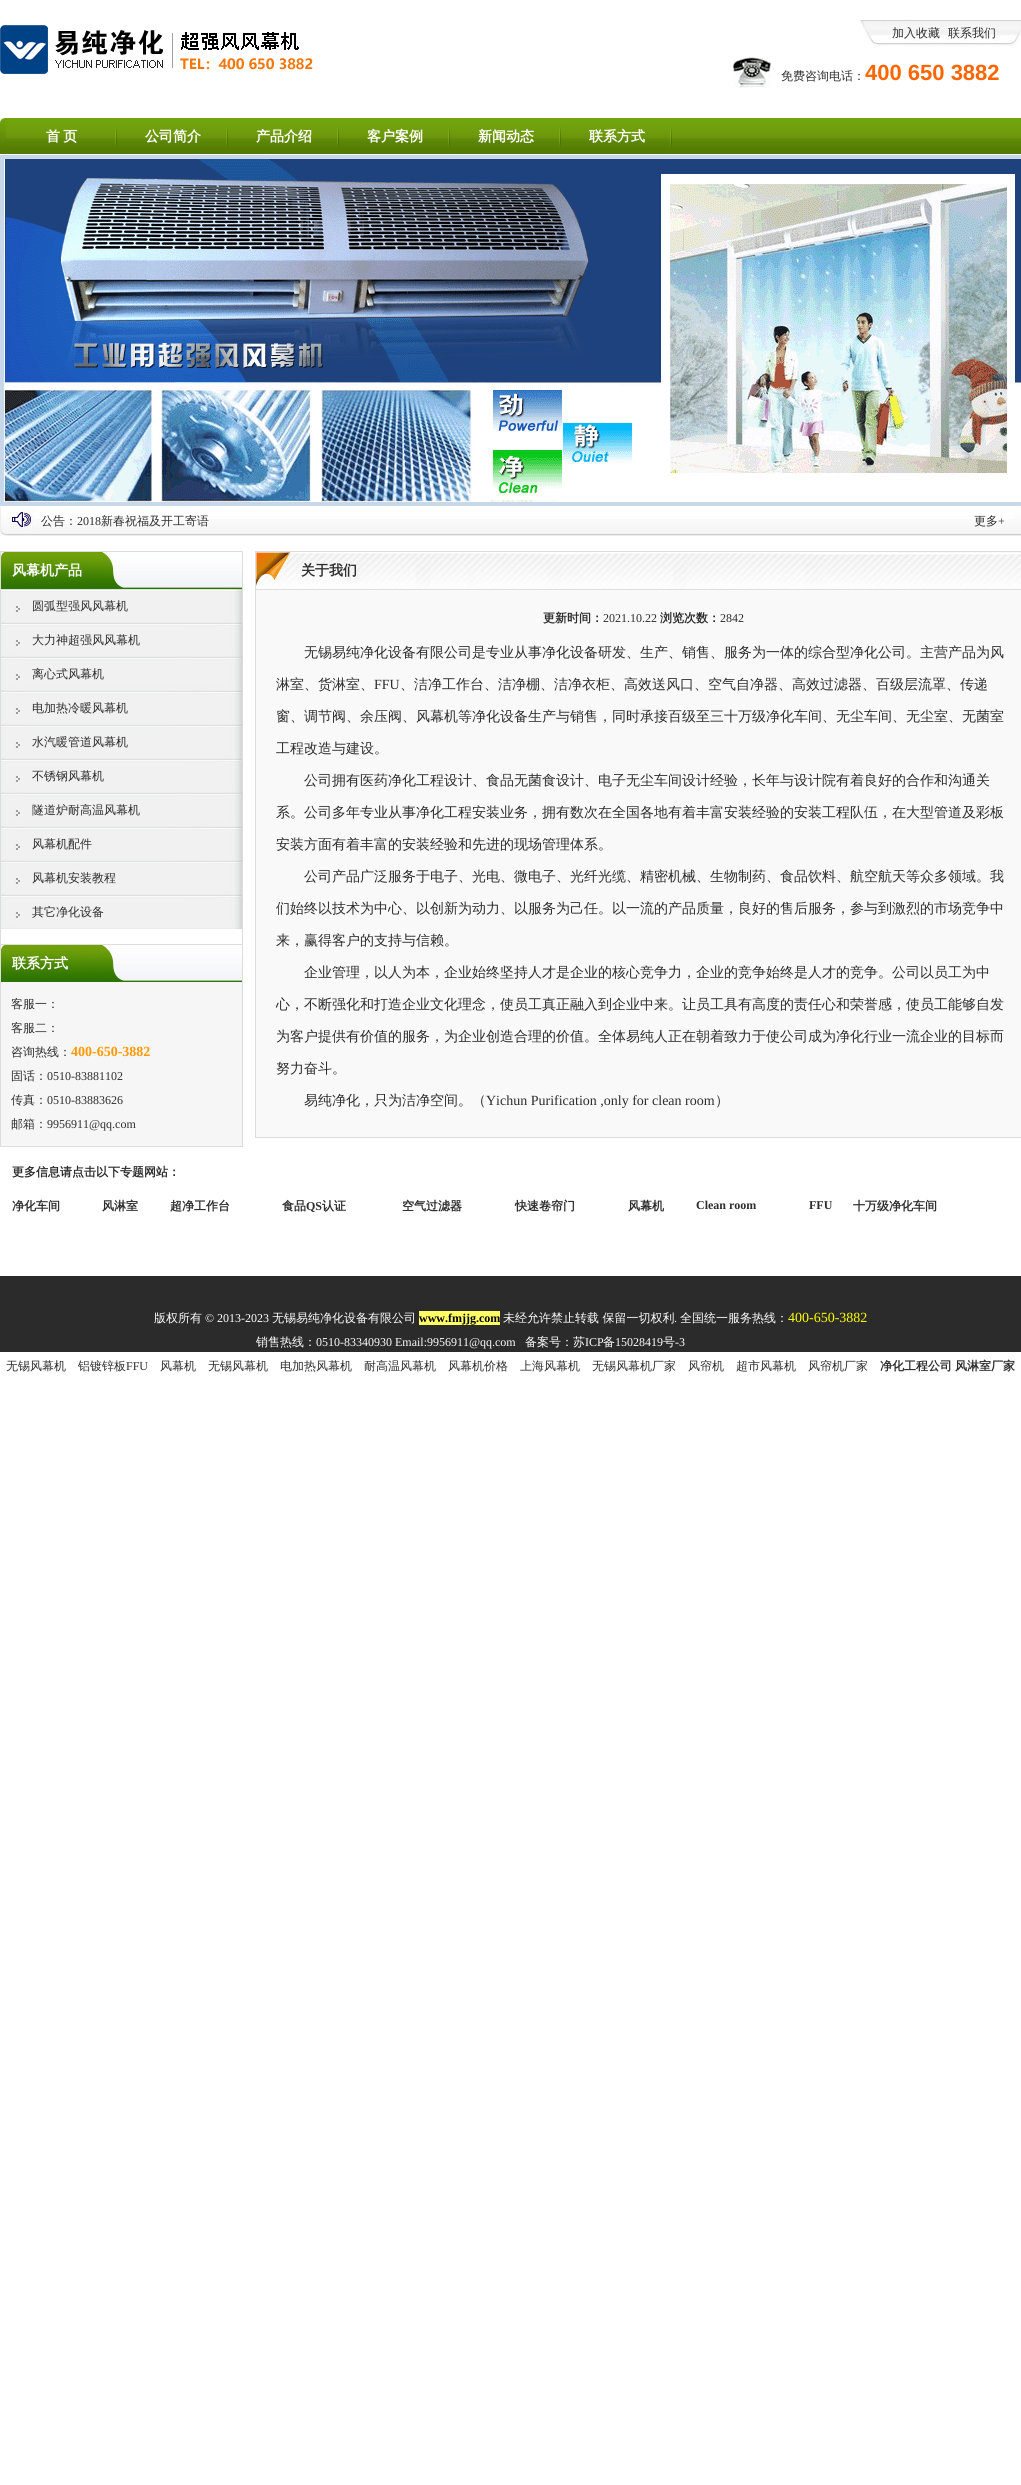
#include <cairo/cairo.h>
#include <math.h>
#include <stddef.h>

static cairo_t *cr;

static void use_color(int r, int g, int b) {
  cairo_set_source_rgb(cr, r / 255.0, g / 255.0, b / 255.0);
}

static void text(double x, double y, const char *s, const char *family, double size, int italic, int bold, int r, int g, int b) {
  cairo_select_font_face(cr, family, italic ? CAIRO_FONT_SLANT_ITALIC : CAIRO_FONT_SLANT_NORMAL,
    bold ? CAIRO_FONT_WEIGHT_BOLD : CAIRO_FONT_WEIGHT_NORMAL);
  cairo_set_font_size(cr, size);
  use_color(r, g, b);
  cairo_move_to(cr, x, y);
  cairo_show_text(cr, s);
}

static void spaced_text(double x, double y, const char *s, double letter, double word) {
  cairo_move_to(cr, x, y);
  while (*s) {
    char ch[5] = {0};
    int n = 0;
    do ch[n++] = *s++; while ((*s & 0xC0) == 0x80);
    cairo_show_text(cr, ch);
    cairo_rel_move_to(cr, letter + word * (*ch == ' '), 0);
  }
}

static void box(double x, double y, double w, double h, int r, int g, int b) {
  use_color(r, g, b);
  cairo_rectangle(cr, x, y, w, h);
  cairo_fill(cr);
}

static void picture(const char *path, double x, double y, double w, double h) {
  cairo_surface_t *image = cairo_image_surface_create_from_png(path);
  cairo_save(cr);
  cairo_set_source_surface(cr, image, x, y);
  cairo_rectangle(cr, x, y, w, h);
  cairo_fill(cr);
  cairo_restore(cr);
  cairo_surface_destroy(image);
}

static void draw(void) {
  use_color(255, 255, 255);
  cairo_paint(cr);
  picture("img_01.png", 0, 25, 313, 49);
  picture("img_02.png", 860, 20, 161, 26);
  picture("img_03.png", 733, 57, 38, 31);
  picture("img_04.png", 6, 118, 1015, 36);
  picture("img_05.png", 0, 118, 6, 36);
  picture("img_06.png", 115, 127, 2, 26);
  picture("img_06.png", 226, 127, 2, 26);
  picture("img_06.png", 337, 127, 2, 26);
  picture("img_06.png", 448, 127, 2, 26);
  picture("img_06.png", 559, 127, 2, 26);
  picture("img_06.png", 670, 127, 2, 26);
  picture("img_07.png", 0, 155, 1021, 351);
  picture("img_08.png", 0, 506, 35, 30);
  picture("img_09.png", 35, 519, 979, 17);
  picture("img_10.png", 1014, 507, 7, 29);
  cairo_rectangle(cr, 0.5, 551.5, 242, 595);
  use_color(221, 221, 221);
  cairo_set_line_width(cr, 1);
  cairo_stroke(cr);
  picture("img_11.png", 1, 552, 241, 37);
  picture("img_12.png", 1, 589, 241, 34);
  picture("img_12.png", 1, 623, 241, 34);
  picture("img_12.png", 1, 657, 241, 34);
  picture("img_12.png", 1, 691, 241, 34);
  picture("img_12.png", 1, 725, 241, 34);
  picture("img_12.png", 1, 759, 241, 34);
  picture("img_12.png", 1, 793, 241, 34);
  picture("img_12.png", 1, 827, 241, 34);
  picture("img_12.png", 1, 861, 241, 34);
  picture("img_12.png", 1, 895, 241, 34);
  picture("img_11.png", 1, 945, 241, 37);
  box(1, 944, 241, 1, 221, 221, 221);
  box(1, 982, 241, 164, 246, 246, 246);
  box(256, 590, 765, 547, 249, 249, 249);
  cairo_rectangle(cr, 255.5, 551.5, 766, 586);
  use_color(221, 221, 221);
  cairo_stroke(cr);
  picture("img_13.png", 256, 552, 765, 38);
  box(0, 1276, 1021, 76, 43, 43, 43);
  box(419, 1311, 81, 14, 255, 255, 102);
  text(892, 37, "加入收藏", "WenQuanYi Zen Hei Medium", 12, 0, 0, 45, 45, 45);
  text(948, 37, "联系我们", "WenQuanYi Zen Hei Medium", 12, 0, 0, 45, 45, 45);
  text(781, 80, "免费咨询电话：", "WenQuanYi Zen Hei Medium", 12, 0, 0, 45, 45, 45);
  text(865, 80, "400 650 3882", "Liberation Sans", 22, 0, 1, 255, 102, 0);
  cairo_select_font_face(cr, "WenQuanYi Zen Hei", CAIRO_FONT_SLANT_NORMAL, CAIRO_FONT_WEIGHT_BOLD);
  cairo_set_font_size(cr, 14);
  use_color(255, 255, 255);
  spaced_text(46, 141, "首 页", 0, -1);
  text(145, 141, "公司简介", "WenQuanYi Zen Hei", 14, 0, 1, 255, 255, 255);
  text(256, 141, "产品介绍", "WenQuanYi Zen Hei", 14, 0, 1, 255, 255, 255);
  text(367, 141, "客户案例", "WenQuanYi Zen Hei", 14, 0, 1, 255, 255, 255);
  text(478, 141, "新闻动态", "WenQuanYi Zen Hei", 14, 0, 1, 255, 255, 255);
  text(589, 141, "联系方式", "WenQuanYi Zen Hei", 14, 0, 1, 255, 255, 255);
  text(41, 525, "公告：", "WenQuanYi Zen Hei Medium", 12, 0, 0, 45, 45, 45);
  text(77, 525, "2018", "Liberation Serif", 12, 0, 0, 45, 45, 45);
  text(101, 525, "新春祝福及开工寄语", "WenQuanYi Zen Hei Medium", 12, 0, 0, 45, 45, 45);
  text(974, 525, "更多", "WenQuanYi Zen Hei Medium", 12, 0, 0, 45, 45, 45);
  text(998, 525, "+", "Liberation Serif", 12, 0, 0, 45, 45, 45);
  text(12, 575, "风幕机产品", "WenQuanYi Zen Hei", 14, 0, 1, 255, 255, 255);
  text(32, 610, "圆弧型强风风幕机", "WenQuanYi Zen Hei Medium", 12, 0, 0, 45, 45, 45);
  text(32, 644, "大力神超强风风幕机", "WenQuanYi Zen Hei Medium", 12, 0, 0, 45, 45, 45);
  text(32, 678, "离心式风幕机", "WenQuanYi Zen Hei Medium", 12, 0, 0, 45, 45, 45);
  text(32, 712, "电加热冷暖风幕机", "WenQuanYi Zen Hei Medium", 12, 0, 0, 45, 45, 45);
  text(32, 746, "水汽暖管道风幕机", "WenQuanYi Zen Hei Medium", 12, 0, 0, 45, 45, 45);
  text(32, 780, "不锈钢风幕机", "WenQuanYi Zen Hei Medium", 12, 0, 0, 45, 45, 45);
  text(32, 814, "隧道炉耐高温风幕机", "WenQuanYi Zen Hei Medium", 12, 0, 0, 45, 45, 45);
  text(32, 848, "风幕机配件", "WenQuanYi Zen Hei Medium", 12, 0, 0, 45, 45, 45);
  text(32, 882, "风幕机安装教程", "WenQuanYi Zen Hei Medium", 12, 0, 0, 45, 45, 45);
  text(32, 916, "其它净化设备", "WenQuanYi Zen Hei Medium", 12, 0, 0, 45, 45, 45);
  text(12, 968, "联系方式", "WenQuanYi Zen Hei", 14, 0, 1, 255, 255, 255);
  text(11, 1008, "客服一：", "WenQuanYi Zen Hei Medium", 12, 0, 0, 45, 45, 45);
  text(11, 1032, "客服二：", "WenQuanYi Zen Hei Medium", 12, 0, 0, 45, 45, 45);
  text(11, 1056, "咨询热线：", "WenQuanYi Zen Hei Medium", 12, 0, 0, 45, 45, 45);
  text(71, 1056, "400-650-3882", "Liberation Serif", 14, 0, 1, 255, 153, 0);
  text(11, 1080, "固话：", "WenQuanYi Zen Hei Medium", 12, 0, 0, 45, 45, 45);
  text(47, 1080, "0510-83881102", "Liberation Serif", 12, 0, 0, 45, 45, 45);
  text(11, 1104, "传真：", "WenQuanYi Zen Hei Medium", 12, 0, 0, 45, 45, 45);
  text(47, 1104, "0510-83883626", "Liberation Serif", 12, 0, 0, 45, 45, 45);
  text(11, 1128, "邮箱：", "WenQuanYi Zen Hei Medium", 12, 0, 0, 45, 45, 45);
  text(47, 1128, "9956911@qq.com", "Liberation Serif", 12, 0, 0, 45, 45, 45);
  text(301, 575, "关于我们", "WenQuanYi Zen Hei", 14, 0, 1, 45, 45, 45);
  text(543, 622, "更新时间：", "WenQuanYi Zen Hei", 12, 0, 1, 45, 45, 45);
  text(603, 622, "2021.10.22", "Liberation Serif", 12, 0, 0, 45, 45, 45);
  text(660, 622, "浏览次数：", "WenQuanYi Zen Hei", 12, 0, 1, 45, 45, 45);
  text(720, 622, "2842", "Liberation Serif", 12, 0, 0, 45, 45, 45);
  text(304, 657, "无锡易纯净化设备有限公司是专业从事净化设备研发、生产、销售、服务为一体的综合型净化公司。主营产品为风", "WenQuanYi Zen Hei Medium", 14, 0, 0, 45, 45, 45);
  text(276, 689, "淋室、货淋室、", "WenQuanYi Zen Hei Medium", 14, 0, 0, 45, 45, 45);
  text(374, 689, "FFU", "Liberation Serif", 14, 0, 0, 45, 45, 45);
  text(400, 689, "、洁净工作台、洁净棚、洁净衣柜、高效送风口、空气自净器、高效过滤器、百级层流罩、传递", "WenQuanYi Zen Hei Medium", 14, 0, 0, 45, 45, 45);
  text(276, 721, "窗、调节阀、余压阀、风幕机等净化设备生产与销售，同时承接百级至三十万级净化车间、无尘车间、无尘室、无菌室", "WenQuanYi Zen Hei Medium", 14, 0, 0, 45, 45, 45);
  text(276, 753, "工程改造与建设。", "WenQuanYi Zen Hei Medium", 14, 0, 0, 45, 45, 45);
  text(304, 785, "公司拥有医药净化工程设计、食品无菌食设计、电子无尘车间设计经验，长年与设计院有着良好的合作和沟通关", "WenQuanYi Zen Hei Medium", 14, 0, 0, 45, 45, 45);
  text(276, 817, "系。公司多年专业从事净化工程安装业务，拥有数次在全国各地有着丰富安装经验的安装工程队伍，在大型管道及彩板", "WenQuanYi Zen Hei Medium", 14, 0, 0, 45, 45, 45);
  text(276, 849, "安装方面有着丰富的安装经验和先进的现场管理体系。", "WenQuanYi Zen Hei Medium", 14, 0, 0, 45, 45, 45);
  text(304, 881, "公司产品广泛服务于电子、光电、微电子、光纤光缆、精密机械、生物制药、食品饮料、航空航天等众多领域。我", "WenQuanYi Zen Hei Medium", 14, 0, 0, 45, 45, 45);
  text(276, 913, "们始终以技术为中心、以创新为动力、以服务为己任。以一流的产品质量，良好的售后服务，参与到激烈的市场竞争中", "WenQuanYi Zen Hei Medium", 14, 0, 0, 45, 45, 45);
  text(276, 945, "来，赢得客户的支持与信赖。", "WenQuanYi Zen Hei Medium", 14, 0, 0, 45, 45, 45);
  text(304, 977, "企业管理，以人为本，企业始终坚持人才是企业的核心竞争力，企业的竞争始终是人才的竞争。公司以员工为中", "WenQuanYi Zen Hei Medium", 14, 0, 0, 45, 45, 45);
  text(276, 1009, "心，不断强化和打造企业文化理念，使员工真正融入到企业中来。让员工具有高度的责任心和荣誉感，使员工能够自发", "WenQuanYi Zen Hei Medium", 14, 0, 0, 45, 45, 45);
  text(276, 1041, "为客户提供有价值的服务，为企业创造合理的价值。全体易纯人正在朝着致力于使公司成为净化行业一流企业的目标而", "WenQuanYi Zen Hei Medium", 14, 0, 0, 45, 45, 45);
  text(276, 1073, "努力奋斗。", "WenQuanYi Zen Hei Medium", 14, 0, 0, 45, 45, 45);
  text(304, 1105, "易纯净化，只为洁净空间。（", "WenQuanYi Zen Hei Medium", 14, 0, 0, 45, 45, 45);
  text(486, 1105, "Yichun Purification ,only for clean room", "Liberation Serif", 14, 0, 0, 45, 45, 45);
  text(715, 1105, "）", "WenQuanYi Zen Hei Medium", 14, 0, 0, 45, 45, 45);
  text(12, 1176, "更多信息请点击以下专题网站：", "WenQuanYi Zen Hei", 12, 0, 1, 45, 45, 45);
  text(12, 1210, "净化车间", "WenQuanYi Zen Hei", 12, 0, 1, 45, 45, 45);
  text(102, 1210, "风淋室", "WenQuanYi Zen Hei", 12, 0, 1, 45, 45, 45);
  text(170, 1210, "超净工作台", "WenQuanYi Zen Hei", 12, 0, 1, 45, 45, 45);
  text(282, 1210, "食品", "WenQuanYi Zen Hei", 12, 0, 1, 45, 45, 45);
  text(306, 1210, "QS", "Liberation Serif", 12, 0, 1, 45, 45, 45);
  text(322, 1210, "认证", "WenQuanYi Zen Hei", 12, 0, 1, 45, 45, 45);
  text(402, 1210, "空气过滤器", "WenQuanYi Zen Hei", 12, 0, 1, 45, 45, 45);
  text(515, 1210, "快速卷帘门", "WenQuanYi Zen Hei", 12, 0, 1, 45, 45, 45);
  text(628, 1210, "风幕机", "WenQuanYi Zen Hei", 12, 0, 1, 45, 45, 45);
  text(696, 1209, "Clean room", "Liberation Serif", 12, 0, 1, 45, 45, 45);
  text(809, 1209, "FFU", "Liberation Serif", 12, 0, 1, 45, 45, 45);
  text(853, 1210, "十万级净化车间", "WenQuanYi Zen Hei", 12, 0, 1, 45, 45, 45);
  text(154, 1322, "版权所有", "WenQuanYi Zen Hei Medium", 12, 0, 0, 255, 255, 255);
  text(205, 1322, "© 2013-2023", "Liberation Serif", 12, 0, 0, 255, 255, 255);
  text(272, 1322, "无锡易纯净化设备有限公司", "WenQuanYi Zen Hei Medium", 12, 0, 0, 255, 255, 255);
  text(419, 1322, "www.fmjjg.com", "Liberation Serif", 12, 0, 1, 0, 0, 0);
  text(503, 1322, "未经允许禁止转载 保留一切权利", "WenQuanYi Zen Hei Medium", 12, 0, 0, 255, 255, 255);
  text(674, 1322, ".", "Liberation Serif", 12, 0, 0, 255, 255, 255);
  text(680, 1322, "全国统一服务热线：", "WenQuanYi Zen Hei Medium", 12, 0, 0, 255, 255, 255);
  text(788, 1322, "400-650-3882", "Liberation Serif", 14, 0, 0, 255, 255, 0);
  text(256, 1346, "销售热线：", "WenQuanYi Zen Hei Medium", 12, 0, 0, 255, 255, 255);
  text(316, 1346, "0510-83340930 Email:9956911@qq.com", "Liberation Serif", 12, 0, 0, 255, 255, 255);
  text(525, 1346, "备案号：苏", "WenQuanYi Zen Hei Medium", 12, 0, 0, 255, 255, 255);
  text(585, 1346, "ICP", "Liberation Serif", 12, 0, 0, 255, 255, 255);
  text(603, 1346, "备", "WenQuanYi Zen Hei Medium", 12, 0, 0, 255, 255, 255);
  text(615, 1346, "15028419", "Liberation Serif", 12, 0, 0, 255, 255, 255);
  text(663, 1346, "号", "WenQuanYi Zen Hei Medium", 12, 0, 0, 255, 255, 255);
  text(675, 1346, "-3", "Liberation Serif", 12, 0, 0, 255, 255, 255);
  text(6, 1370, "无锡风幕机", "WenQuanYi Zen Hei Medium", 12, 0, 0, 45, 45, 45);
  text(78, 1370, "铝镀锌板", "WenQuanYi Zen Hei Medium", 12, 0, 0, 45, 45, 45);
  text(126, 1370, "FFU", "Liberation Serif", 12, 0, 0, 45, 45, 45);
  text(160, 1370, "风幕机", "WenQuanYi Zen Hei Medium", 12, 0, 0, 45, 45, 45);
  text(208, 1370, "无锡风幕机", "WenQuanYi Zen Hei Medium", 12, 0, 0, 45, 45, 45);
  text(280, 1370, "电加热风幕机", "WenQuanYi Zen Hei Medium", 12, 0, 0, 45, 45, 45);
  text(364, 1370, "耐高温风幕机", "WenQuanYi Zen Hei Medium", 12, 0, 0, 45, 45, 45);
  text(448, 1370, "风幕机价格", "WenQuanYi Zen Hei Medium", 12, 0, 0, 45, 45, 45);
  text(520, 1370, "上海风幕机", "WenQuanYi Zen Hei Medium", 12, 0, 0, 45, 45, 45);
  text(592, 1370, "无锡风幕机厂家", "WenQuanYi Zen Hei Medium", 12, 0, 0, 45, 45, 45);
  text(688, 1370, "风帘机", "WenQuanYi Zen Hei Medium", 12, 0, 0, 45, 45, 45);
  text(736, 1370, "超市风幕机", "WenQuanYi Zen Hei Medium", 12, 0, 0, 45, 45, 45);
  text(808, 1370, "风帘机厂家", "WenQuanYi Zen Hei Medium", 12, 0, 0, 45, 45, 45);
  text(880, 1370, "净化工程公司", "WenQuanYi Zen Hei", 12, 0, 1, 45, 45, 45);
  text(955, 1370, "风淋室厂家", "WenQuanYi Zen Hei", 12, 0, 1, 45, 45, 45);
}

int main(void) {
  cairo_surface_t *surface = cairo_image_surface_create(CAIRO_FORMAT_RGB24, 1021, 2485);
  cr = cairo_create(surface);
  cairo_font_options_t *options = cairo_font_options_create();
  cairo_font_options_set_hint_metrics(options, CAIRO_HINT_METRICS_OFF);
  cairo_font_options_set_hint_style(options, CAIRO_HINT_STYLE_NONE);
  cairo_set_font_options(cr, options);
  cairo_set_miter_limit(cr, 4);
  draw();
  cairo_surface_write_to_png(surface, "out.png");
  cairo_font_options_destroy(options);
  cairo_destroy(cr);
  cairo_surface_destroy(surface);
  return 0;
}
